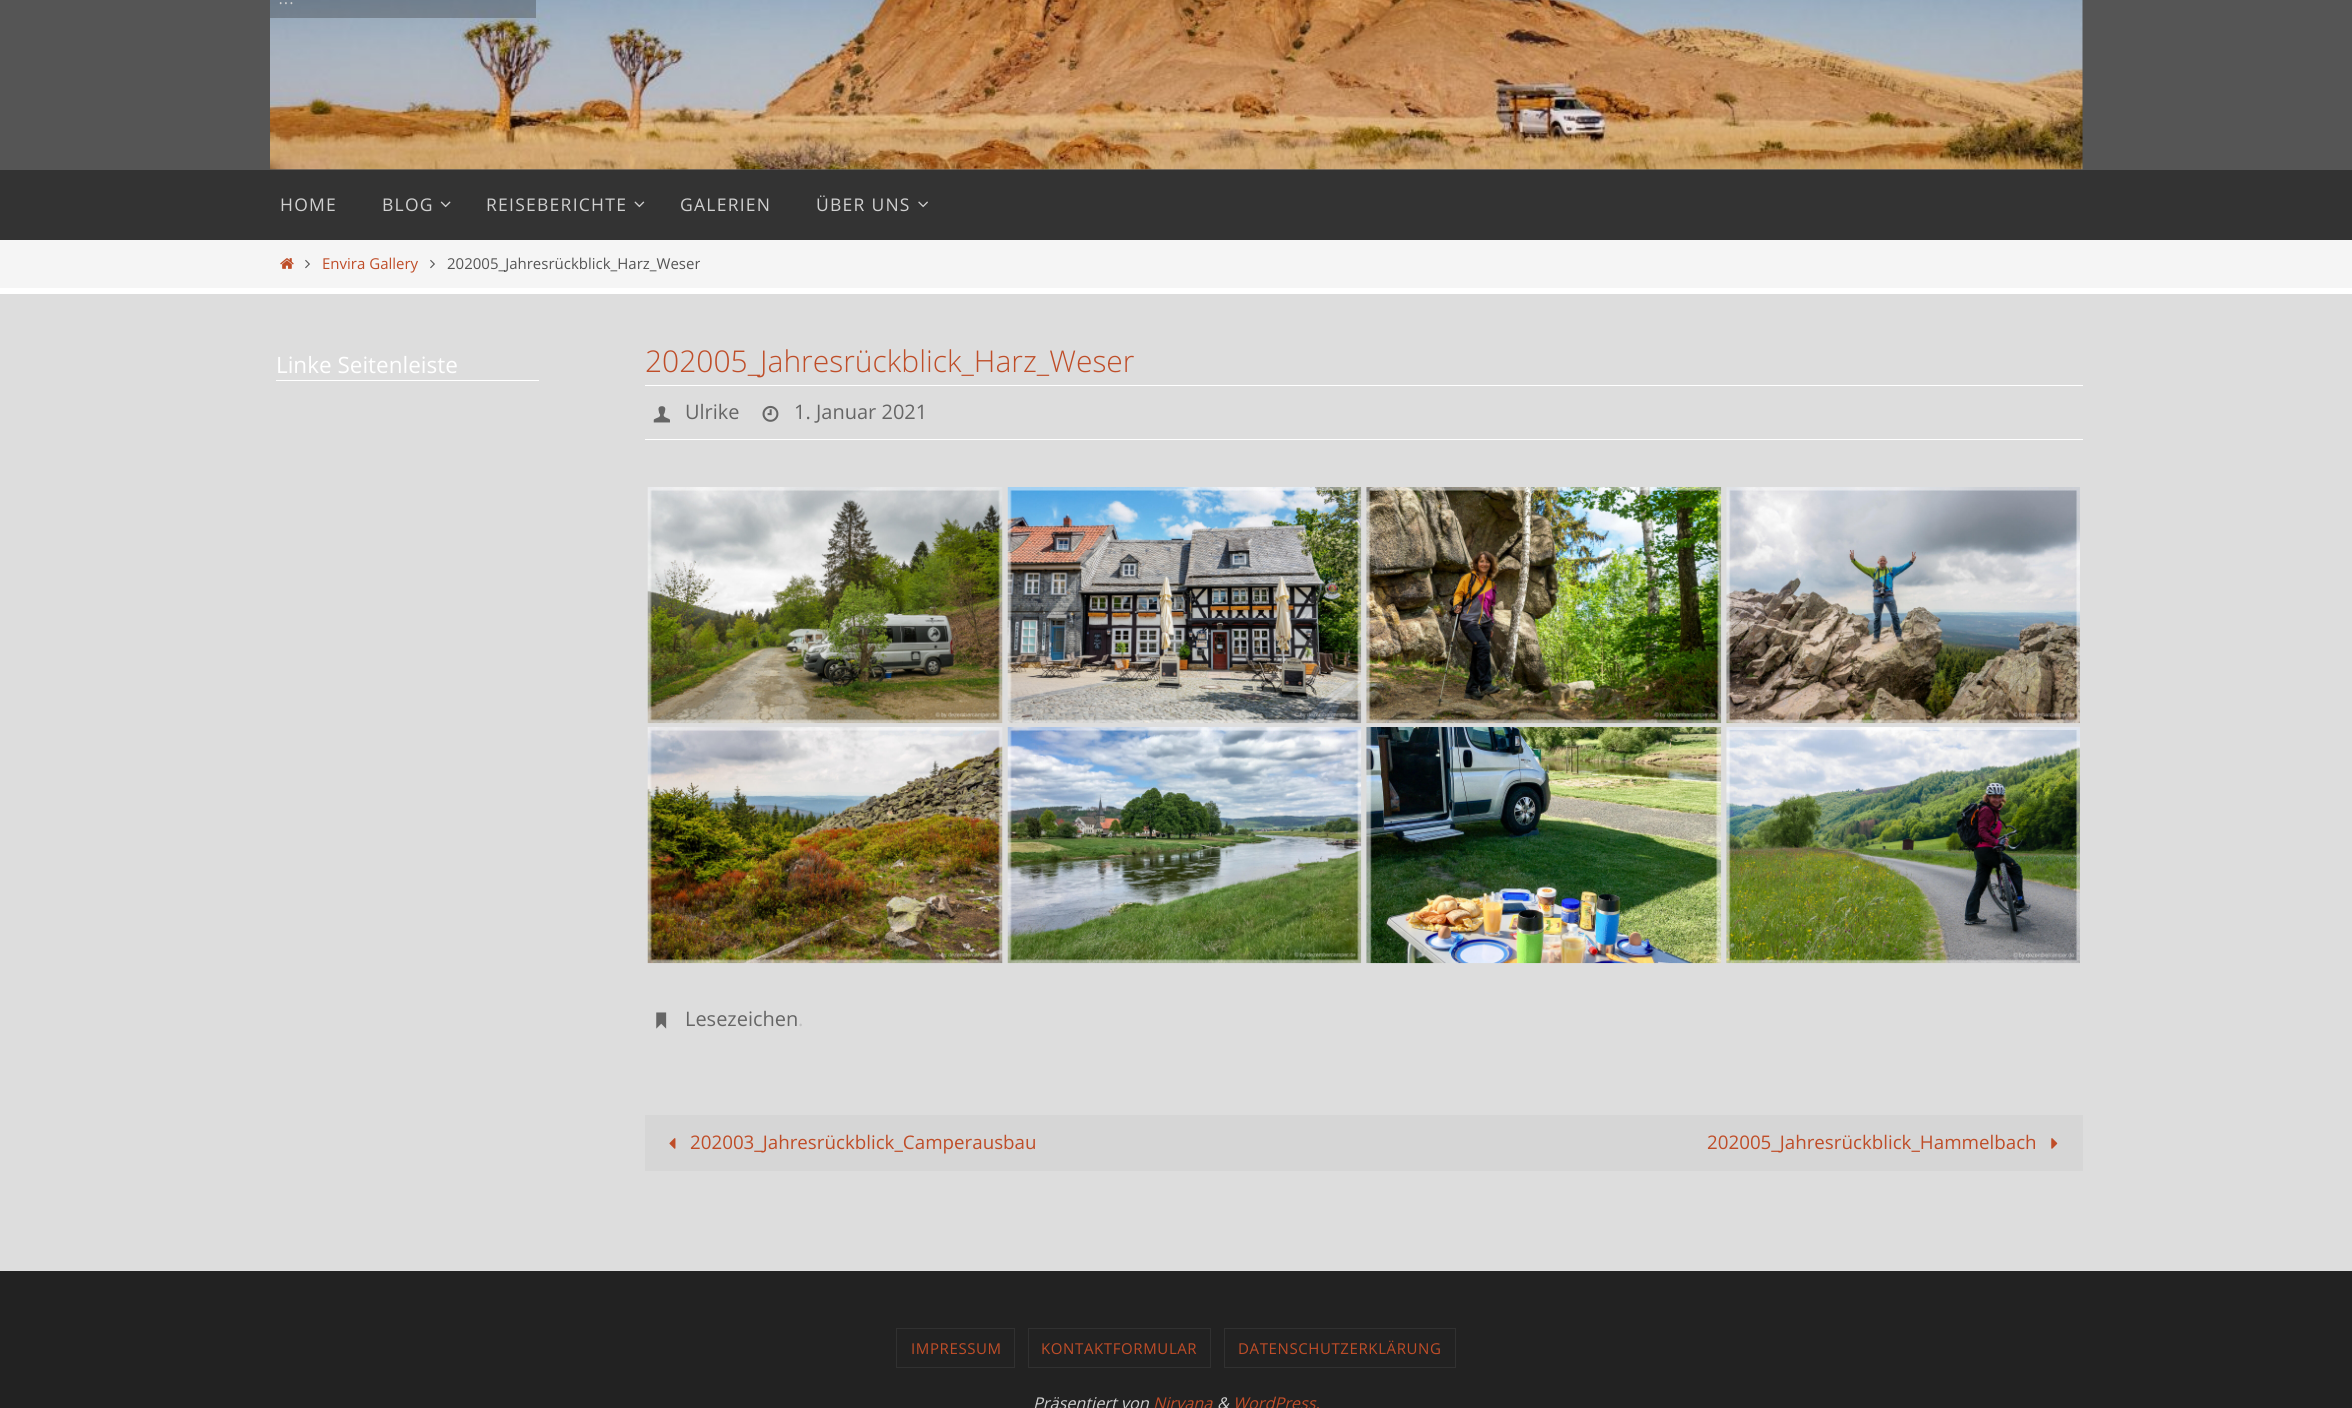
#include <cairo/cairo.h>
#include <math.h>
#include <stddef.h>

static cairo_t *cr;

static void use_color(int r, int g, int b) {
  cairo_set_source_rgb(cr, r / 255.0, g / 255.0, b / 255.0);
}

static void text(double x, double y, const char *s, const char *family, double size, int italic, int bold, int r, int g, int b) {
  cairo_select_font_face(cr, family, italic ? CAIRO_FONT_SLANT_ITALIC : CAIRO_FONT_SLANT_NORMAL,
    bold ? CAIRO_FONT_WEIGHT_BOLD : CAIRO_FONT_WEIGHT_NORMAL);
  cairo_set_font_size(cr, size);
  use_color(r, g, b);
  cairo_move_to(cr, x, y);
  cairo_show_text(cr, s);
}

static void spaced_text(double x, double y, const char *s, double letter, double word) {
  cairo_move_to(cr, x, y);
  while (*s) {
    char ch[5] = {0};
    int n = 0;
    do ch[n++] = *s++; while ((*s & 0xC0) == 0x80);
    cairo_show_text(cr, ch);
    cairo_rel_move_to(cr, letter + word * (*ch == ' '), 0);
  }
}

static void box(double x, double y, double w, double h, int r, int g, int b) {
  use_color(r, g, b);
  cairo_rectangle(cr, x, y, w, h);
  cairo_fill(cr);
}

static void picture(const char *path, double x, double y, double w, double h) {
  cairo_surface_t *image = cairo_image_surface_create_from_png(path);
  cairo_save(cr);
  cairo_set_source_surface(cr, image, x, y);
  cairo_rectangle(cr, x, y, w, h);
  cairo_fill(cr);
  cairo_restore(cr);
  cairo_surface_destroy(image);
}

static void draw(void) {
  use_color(255, 255, 255);
  cairo_paint(cr);
  box(0, 0, 2352, 170, 85, 85, 85);
  picture("img_01.png", 270, 0, 1813, 170);
  cairo_set_source_rgba(cr, 0.133, 0.133, 0.133, 0.3);
  cairo_rectangle(cr, 270, 0, 266, 18);
  cairo_fill(cr);
  box(0, 170, 2352, 70, 51, 51, 51);
  picture("img_02.png", 440, 201, 11, 7);
  picture("img_03.png", 634, 201, 11, 7);
  picture("img_04.png", 918, 201, 10, 7);
  box(0, 240, 2352, 48, 245, 245, 245);
  picture("img_05.png", 280, 258, 14, 11);
  picture("img_06.png", 305, 259, 5, 10);
  picture("img_06.png", 430, 259, 5, 10);
  box(0, 294, 2352, 977, 221, 221, 221);
  box(276, 380, 263, 1, 255, 255, 255);
  box(645, 385, 1438, 1, 255, 255, 255);
  box(645, 439, 1438, 1, 255, 255, 255);
  picture("img_07.png", 653, 406, 17, 17);
  picture("img_08.png", 762, 405, 17, 17);
  picture("img_09.png", 647, 487, 356, 237);
  picture("img_10.png", 1007, 487, 355, 237);
  picture("img_11.png", 1366, 487, 356, 237);
  picture("img_12.png", 1726, 487, 354, 237);
  picture("img_13.png", 647, 727, 356, 237);
  picture("img_14.png", 1007, 727, 355, 237);
  picture("img_15.png", 1366, 727, 356, 237);
  picture("img_16.png", 1726, 727, 354, 237);
  picture("img_17.png", 656, 1012, 11, 17);
  box(645, 1115, 1438, 56, 214, 214, 214);
  picture("img_18.png", 669, 1138, 7, 11);
  picture("img_19.png", 2051, 1138, 7, 11);
  box(0, 1271, 2352, 137, 34, 34, 34);
  cairo_rectangle(cr, 896.5, 1328.5, 118, 39);
  use_color(49, 49, 49);
  cairo_set_line_width(cr, 1);
  cairo_stroke(cr);
  cairo_rectangle(cr, 1028.5, 1328.5, 182, 39);
  cairo_stroke(cr);
  cairo_rectangle(cr, 1224.5, 1328.5, 231, 39);
  cairo_stroke(cr);
  text(278, 4, "...", "Open Sans Light", 22.5, 0, 0, 208, 208, 208);
  cairo_select_font_face(cr, "Open Sans", CAIRO_FONT_SLANT_NORMAL, CAIRO_FONT_WEIGHT_NORMAL);
  cairo_set_font_size(cr, 17.5);
  spaced_text(280, 211, "HOME", 1.25, 0);
  spaced_text(382, 211, "BLOG", 1.25, 0);
  spaced_text(486, 211, "REISEBERICHTE", 1.25, 0);
  spaced_text(680, 211, "GALERIEN", 1.25, 0);
  spaced_text(816, 211, "ÜBER UNS", 1.25, 0);
  text(322, 269, "Envira Gallery", "Open Sans", 15, 0, 0, 191, 77, 40);
  text(447, 269, "202005_Jahresrückblick_Harz_Weser", "Open Sans", 15, 0, 0, 85, 85, 85);
  text(276, 373, "Linke Seitenleiste", "Open Sans", 22.5, 0, 0, 255, 255, 255);
  text(645, 372, "202005_Jahresrückblick_Harz_Weser", "Open Sans Light", 30, 0, 0, 191, 77, 40);
  text(685, 419, "Ulrike", "Open Sans", 20, 0, 0, 102, 102, 102);
  text(794, 419, "1. Januar 2021", "Open Sans", 20, 0, 0, 102, 102, 102);
  text(685, 1026, "Lesezeichen", "Open Sans", 20, 0, 0, 102, 102, 102);
  text(798, 1026, ".", "Open Sans", 20, 0, 0, 193, 193, 193);
  text(690, 1149, "202003_Jahresrückblick_Camperausbau", "Open Sans", 18.75, 0, 0, 191, 77, 40);
  text(1707, 1149, "202005_Jahresrückblick_Hammelbach", "Open Sans", 18.75, 0, 0, 191, 77, 40);
  cairo_set_font_size(cr, 15);
  spaced_text(911, 1354, "IMPRESSUM", 0.6, 0);
  spaced_text(1041, 1354, "KONTAKTFORMULAR", 0.6, 0);
  spaced_text(1238, 1354, "DATENSCHUTZERKLÄRUNG", 0.6, 0);
  text(1033, 1409, "Präsentiert von", "Open Sans", 16.25, 1, 0, 208, 208, 208);
  text(1153, 1409, "Nirvana", "Open Sans", 16.25, 1, 0, 191, 77, 40);
  text(1217, 1409, "&", "Open Sans", 16.25, 1, 0, 208, 208, 208);
  text(1233, 1409, "WordPress.", "Open Sans", 16.25, 1, 0, 191, 77, 40);
}

int main(void) {
  cairo_surface_t *surface = cairo_image_surface_create(CAIRO_FORMAT_RGB24, 2352, 1408);
  cr = cairo_create(surface);
  cairo_font_options_t *options = cairo_font_options_create();
  cairo_font_options_set_hint_metrics(options, CAIRO_HINT_METRICS_OFF);
  cairo_font_options_set_hint_style(options, CAIRO_HINT_STYLE_NONE);
  cairo_set_font_options(cr, options);
  cairo_set_miter_limit(cr, 4);
  draw();
  cairo_surface_write_to_png(surface, "out.png");
  cairo_font_options_destroy(options);
  cairo_destroy(cr);
  cairo_surface_destroy(surface);
  return 0;
}
